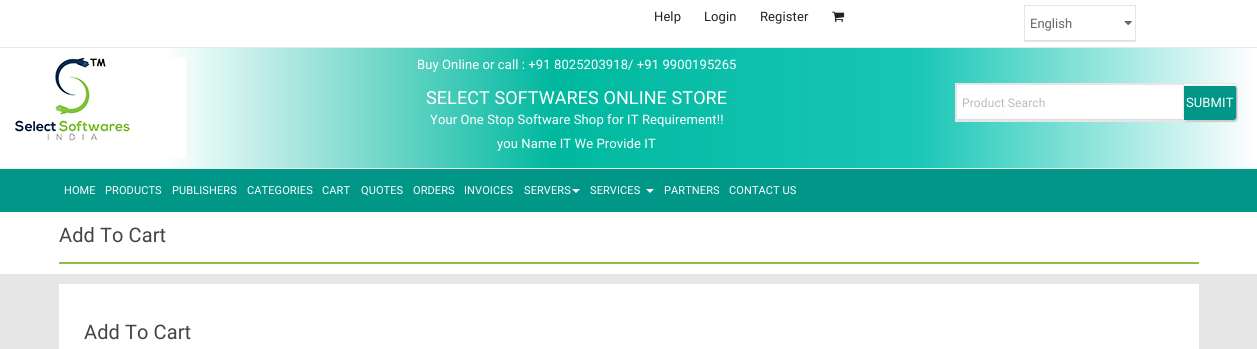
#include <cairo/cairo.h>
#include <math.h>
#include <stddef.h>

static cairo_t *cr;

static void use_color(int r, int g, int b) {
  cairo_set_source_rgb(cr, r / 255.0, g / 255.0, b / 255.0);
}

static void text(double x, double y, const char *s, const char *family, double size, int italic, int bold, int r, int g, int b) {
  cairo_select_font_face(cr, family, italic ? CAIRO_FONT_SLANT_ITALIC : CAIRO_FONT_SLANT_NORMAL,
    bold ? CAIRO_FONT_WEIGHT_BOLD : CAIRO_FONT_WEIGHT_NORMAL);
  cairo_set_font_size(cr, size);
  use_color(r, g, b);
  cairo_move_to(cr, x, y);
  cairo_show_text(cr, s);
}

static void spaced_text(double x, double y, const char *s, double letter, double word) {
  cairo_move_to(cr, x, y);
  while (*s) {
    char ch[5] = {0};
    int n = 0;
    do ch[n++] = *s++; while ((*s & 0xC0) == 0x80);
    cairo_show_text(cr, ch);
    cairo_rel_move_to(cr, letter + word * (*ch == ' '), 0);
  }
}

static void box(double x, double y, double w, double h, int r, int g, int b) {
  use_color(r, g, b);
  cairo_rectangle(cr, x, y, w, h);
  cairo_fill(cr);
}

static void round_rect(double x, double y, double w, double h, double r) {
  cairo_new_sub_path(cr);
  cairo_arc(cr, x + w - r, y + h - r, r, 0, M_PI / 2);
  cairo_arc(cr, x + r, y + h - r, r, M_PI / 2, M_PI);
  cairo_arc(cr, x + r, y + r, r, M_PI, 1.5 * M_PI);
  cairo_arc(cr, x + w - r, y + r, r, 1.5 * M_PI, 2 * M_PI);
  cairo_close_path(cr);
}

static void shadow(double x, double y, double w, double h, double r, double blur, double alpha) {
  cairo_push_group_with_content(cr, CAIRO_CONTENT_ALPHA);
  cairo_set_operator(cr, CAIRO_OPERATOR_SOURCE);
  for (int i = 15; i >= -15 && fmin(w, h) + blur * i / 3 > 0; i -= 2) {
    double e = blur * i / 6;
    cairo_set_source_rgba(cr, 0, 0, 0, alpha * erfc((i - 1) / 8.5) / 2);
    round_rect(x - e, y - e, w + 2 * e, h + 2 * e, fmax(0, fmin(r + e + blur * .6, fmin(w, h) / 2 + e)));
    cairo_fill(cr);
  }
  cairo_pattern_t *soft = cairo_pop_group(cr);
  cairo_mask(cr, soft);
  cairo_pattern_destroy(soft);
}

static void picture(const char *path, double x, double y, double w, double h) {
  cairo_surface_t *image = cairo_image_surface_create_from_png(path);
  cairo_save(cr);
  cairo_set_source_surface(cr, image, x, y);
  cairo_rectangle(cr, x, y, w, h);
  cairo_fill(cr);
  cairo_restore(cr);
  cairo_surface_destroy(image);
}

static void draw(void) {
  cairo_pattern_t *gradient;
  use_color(255, 255, 255);
  cairo_paint(cr);
  box(0, 47, 1257, 1, 230, 230, 230);
  picture("img_01.png", 832, 11, 13, 11);
  picture("img_02.png", 1124, 21, 8, 5);
  box(1025, 40, 110, 1, 221, 221, 221);
  cairo_rectangle(cr, 1024.5, 5.5, 111, 36);
  use_color(230, 230, 230);
  cairo_set_line_width(cr, 1);
  cairo_stroke(cr);
  gradient = cairo_pattern_create_linear(0, 108, 1257, 108);
  cairo_pattern_add_color_stop_rgba(gradient, 0, 1, 1, 1, 1);
  cairo_pattern_add_color_stop_rgba(gradient, 0.13, 1, 1, 1, 1);
  cairo_pattern_add_color_stop_rgba(gradient, 0.44, 0, 0.722, 0.624, 1);
  cairo_pattern_add_color_stop_rgba(gradient, 0.73, 0.094, 0.78, 0.714, 1);
  cairo_pattern_add_color_stop_rgba(gradient, 1, 1, 1, 1, 1);
  cairo_set_source(cr, gradient);
  cairo_pattern_destroy(gradient);
  cairo_rectangle(cr, 167, 48, 1086, 120);
  cairo_fill(cr);
  picture("img_03.png", 15, 58, 171, 100);
  box(957, 84, 279, 37, 255, 255, 255);
  cairo_rectangle(cr, 955.5, 83.5, 281, 38);
  use_color(230, 230, 230);
  cairo_stroke(cr);
  box(957, 119, 226, 1, 221, 221, 221);
  cairo_rectangle(cr, 956.5, 84.5, 227, 36);
  use_color(230, 230, 230);
  cairo_stroke(cr);
  use_color(0, 0, 0);
  shadow(1184, 86, 53, 35, 3, 1, 0.3);
  use_color(0, 150, 136);
  cairo_new_path(cr);
  cairo_move_to(cr, 1183, 85);
  cairo_line_to(cr, 1233, 85);
  cairo_curve_to(cr, 1234.5, 85, 1236, 86.5, 1236, 88);
  cairo_line_to(cr, 1236, 117);
  cairo_curve_to(cr, 1236, 118.5, 1234.5, 120, 1233, 120);
  cairo_line_to(cr, 1183, 120);
  cairo_close_path(cr);
  cairo_fill(cr);
  box(1183, 85, 52, 1, 238, 238, 238);
  box(1183, 85, 1, 35, 238, 238, 238);
  box(0, 168, 1257, 1, 238, 238, 238);
  box(0, 169, 1257, 43, 0, 150, 136);
  use_color(255, 255, 255);
  cairo_new_path(cr);
  cairo_move_to(cr, 572, 189);
  cairo_line_to(cr, 580, 189);
  cairo_line_to(cr, 576, 193);
  cairo_close_path(cr);
  cairo_fill(cr);
  cairo_new_path(cr);
  cairo_move_to(cr, 646, 189);
  cairo_line_to(cr, 654, 189);
  cairo_line_to(cr, 650, 193);
  cairo_close_path(cr);
  cairo_fill(cr);
  box(59, 262, 1140, 2, 132, 196, 65);
  box(0, 274, 1257, 75, 230, 230, 230);
  box(59, 284, 1140, 65, 255, 255, 255);
  cairo_select_font_face(cr, "Roboto", CAIRO_FONT_SLANT_NORMAL, CAIRO_FONT_WEIGHT_NORMAL);
  cairo_set_font_size(cr, 13);
  use_color(34, 34, 34);
  spaced_text(654, 21, "Help", 0.1, 0);
  spaced_text(704, 21, "Login", 0.1, 0);
  spaced_text(760, 21, "Register", 0.1, 0);
  text(1030, 28, "English", "Roboto", 13, 0, 0, 102, 102, 102);
  use_color(255, 255, 255);
  spaced_text(417, 69, "Buy Online or call : +91 8025203918/ +91 9900195265", 0.1, 0);
  cairo_set_font_size(cr, 18);
  spaced_text(426, 104, "SELECT SOFTWARES ONLINE STORE", 0.1, 0);
  cairo_set_font_size(cr, 13);
  spaced_text(430, 124, "Your One Stop Software Shop for IT Requirement!!", 0.1, 0);
  spaced_text(497, 148, "you Name IT We Provide IT", 0.1, 0);
  cairo_set_font_size(cr, 12);
  use_color(187, 187, 187);
  spaced_text(962, 107, "Product Search", 0.1, 0);
  cairo_set_font_size(cr, 13);
  use_color(255, 255, 255);
  spaced_text(1186, 107, "SUBMIT", 0.1, 0);
  cairo_set_font_size(cr, 11);
  spaced_text(64, 194, "HOME", 0.1, 0);
  spaced_text(105, 194, "PRODUCTS", 0.1, 0);
  spaced_text(172, 194, "PUBLISHERS", 0.1, 0);
  spaced_text(247, 194, "CATEGORIES", 0.1, 0);
  spaced_text(322, 194, "CART", 0.1, 0);
  spaced_text(361, 194, "QUOTES", 0.1, 0);
  spaced_text(413, 194, "ORDERS", 0.1, 0);
  spaced_text(464, 194, "INVOICES", 0.1, 0);
  spaced_text(524, 194, "SERVERS", 0.1, 0);
  spaced_text(590, 194, "SERVICES", 0.1, 0);
  spaced_text(664, 194, "PARTNERS", 0.1, 0);
  spaced_text(729, 194, "CONTACT US", 0.1, 0);
  cairo_set_font_size(cr, 20);
  use_color(68, 68, 68);
  spaced_text(59, 242, "Add To Cart", 0.1, 0);
  spaced_text(84, 339, "Add To Cart", 0.1, 0);
}

int main(void) {
  cairo_surface_t *surface = cairo_image_surface_create(CAIRO_FORMAT_RGB24, 1257, 349);
  cr = cairo_create(surface);
  cairo_font_options_t *options = cairo_font_options_create();
  cairo_font_options_set_hint_metrics(options, CAIRO_HINT_METRICS_OFF);
  cairo_font_options_set_hint_style(options, CAIRO_HINT_STYLE_NONE);
  cairo_set_font_options(cr, options);
  cairo_set_miter_limit(cr, 4);
  draw();
  cairo_surface_write_to_png(surface, "out.png");
  cairo_font_options_destroy(options);
  cairo_destroy(cr);
  cairo_surface_destroy(surface);
  return 0;
}
